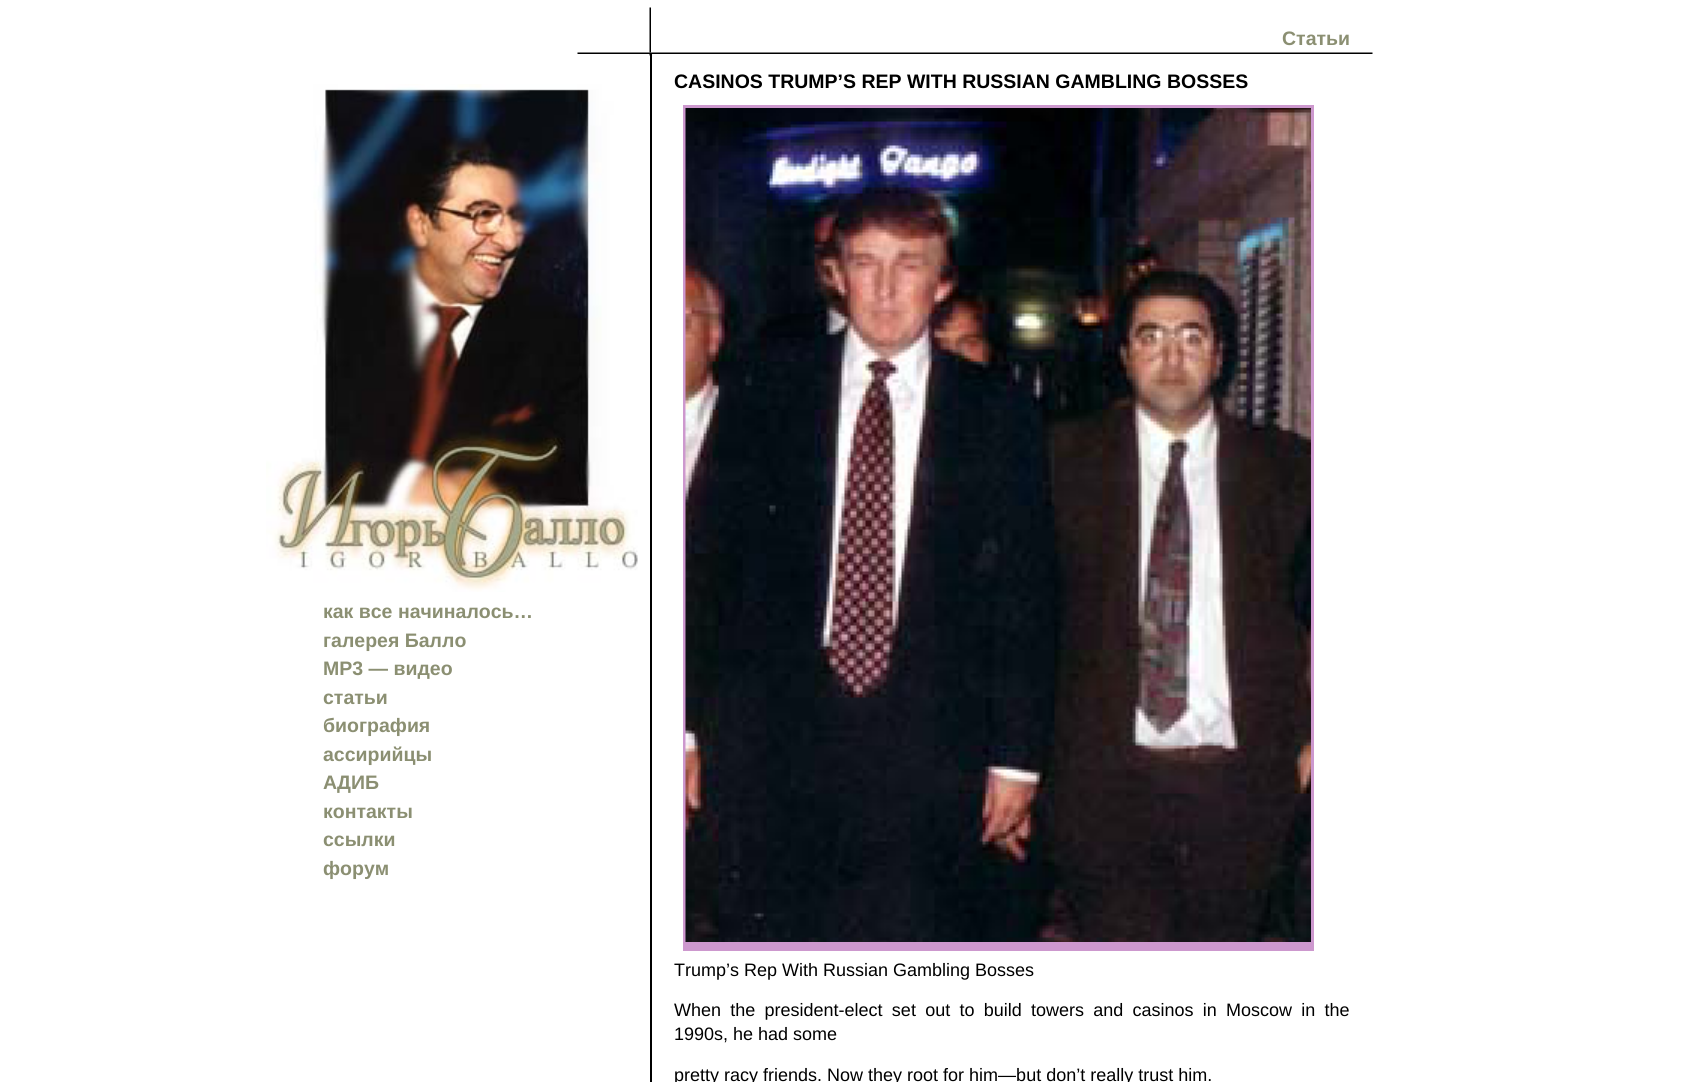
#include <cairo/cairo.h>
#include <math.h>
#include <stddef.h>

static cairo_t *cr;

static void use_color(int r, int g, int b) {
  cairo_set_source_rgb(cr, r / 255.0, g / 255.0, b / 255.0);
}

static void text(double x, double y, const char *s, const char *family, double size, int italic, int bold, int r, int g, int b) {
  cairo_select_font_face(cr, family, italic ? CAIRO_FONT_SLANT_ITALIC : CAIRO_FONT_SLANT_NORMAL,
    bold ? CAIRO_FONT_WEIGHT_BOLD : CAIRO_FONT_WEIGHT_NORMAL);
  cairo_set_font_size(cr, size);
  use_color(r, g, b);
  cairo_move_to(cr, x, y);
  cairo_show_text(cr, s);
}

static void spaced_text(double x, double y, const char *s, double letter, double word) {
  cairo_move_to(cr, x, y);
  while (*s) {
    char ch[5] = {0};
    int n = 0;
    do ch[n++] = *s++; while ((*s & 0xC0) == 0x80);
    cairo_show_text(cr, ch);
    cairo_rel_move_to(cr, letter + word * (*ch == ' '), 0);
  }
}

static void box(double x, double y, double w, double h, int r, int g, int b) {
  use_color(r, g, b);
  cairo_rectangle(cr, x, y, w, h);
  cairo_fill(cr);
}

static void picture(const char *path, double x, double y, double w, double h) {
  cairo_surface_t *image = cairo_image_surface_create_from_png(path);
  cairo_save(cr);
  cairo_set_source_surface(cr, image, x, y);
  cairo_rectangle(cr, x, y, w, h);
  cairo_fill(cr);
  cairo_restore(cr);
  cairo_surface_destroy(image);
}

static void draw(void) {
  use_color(255, 255, 255);
  cairo_paint(cr);
  picture("img_01.png", 649, 7, 2, 46);
  picture("img_02.png", 577, 52, 796, 2);
  picture("img_03.png", 266, 84, 372, 508);
  box(650, 54, 2, 1028, 0, 0, 0);
  picture("img_04.png", 649, 54, 1, 2);
  box(683, 105, 631, 846, 205, 152, 206);
  picture("img_05.png", 685, 108, 626, 834);
  text(1282, 45, "Статьи", "Liberation Sans", 19.5, 0, 1, 139, 143, 114);
  text(323, 618, "как все начиналось…", "Liberation Sans", 19.5, 0, 1, 139, 143, 114);
  text(323, 647, "галерея Балло", "Liberation Sans", 19.5, 0, 1, 139, 143, 114);
  text(323, 675, "MP3 — видео", "Liberation Sans", 19.5, 0, 1, 139, 143, 114);
  text(323, 704, "статьи", "Liberation Sans", 19.5, 0, 1, 139, 143, 114);
  text(323, 732, "биография", "Liberation Sans", 19.5, 0, 1, 139, 143, 114);
  text(323, 761, "ассирийцы", "Liberation Sans", 19.5, 0, 1, 139, 143, 114);
  text(323, 789, "АДИБ", "Liberation Sans", 19.5, 0, 1, 139, 143, 114);
  text(323, 818, "контакты", "Liberation Sans", 19.5, 0, 1, 139, 143, 114);
  text(323, 846, "ссылки", "Liberation Sans", 19.5, 0, 1, 139, 143, 114);
  text(323, 875, "форум", "Liberation Sans", 19.5, 0, 1, 139, 143, 114);
  text(674, 88, "CASINOS TRUMP’S REP WITH RUSSIAN GAMBLING BOSSES", "Liberation Sans", 19.5, 0, 1, 0, 0, 0);
  text(674, 976, "Trump’s Rep With Russian Gambling Bosses", "Liberation Sans", 18, 0, 0, 0, 0, 0);
  spaced_text(674, 1016, "When the president-elect set out to build towers and casinos in Moscow in the", 0, 4.25);
  text(674, 1040, "1990s, he had some", "Liberation Sans", 18, 0, 0, 0, 0, 0);
  text(674, 1081, "pretty racy friends. Now they root for him—but don’t really trust him.", "Liberation Sans", 18, 0, 0, 0, 0, 0);
}

int main(void) {
  cairo_surface_t *surface = cairo_image_surface_create(CAIRO_FORMAT_RGB24, 1686, 1082);
  cr = cairo_create(surface);
  cairo_font_options_t *options = cairo_font_options_create();
  cairo_font_options_set_hint_metrics(options, CAIRO_HINT_METRICS_OFF);
  cairo_font_options_set_hint_style(options, CAIRO_HINT_STYLE_NONE);
  cairo_set_font_options(cr, options);
  cairo_set_miter_limit(cr, 4);
  draw();
  cairo_surface_write_to_png(surface, "out.png");
  cairo_font_options_destroy(options);
  cairo_destroy(cr);
  cairo_surface_destroy(surface);
  return 0;
}
